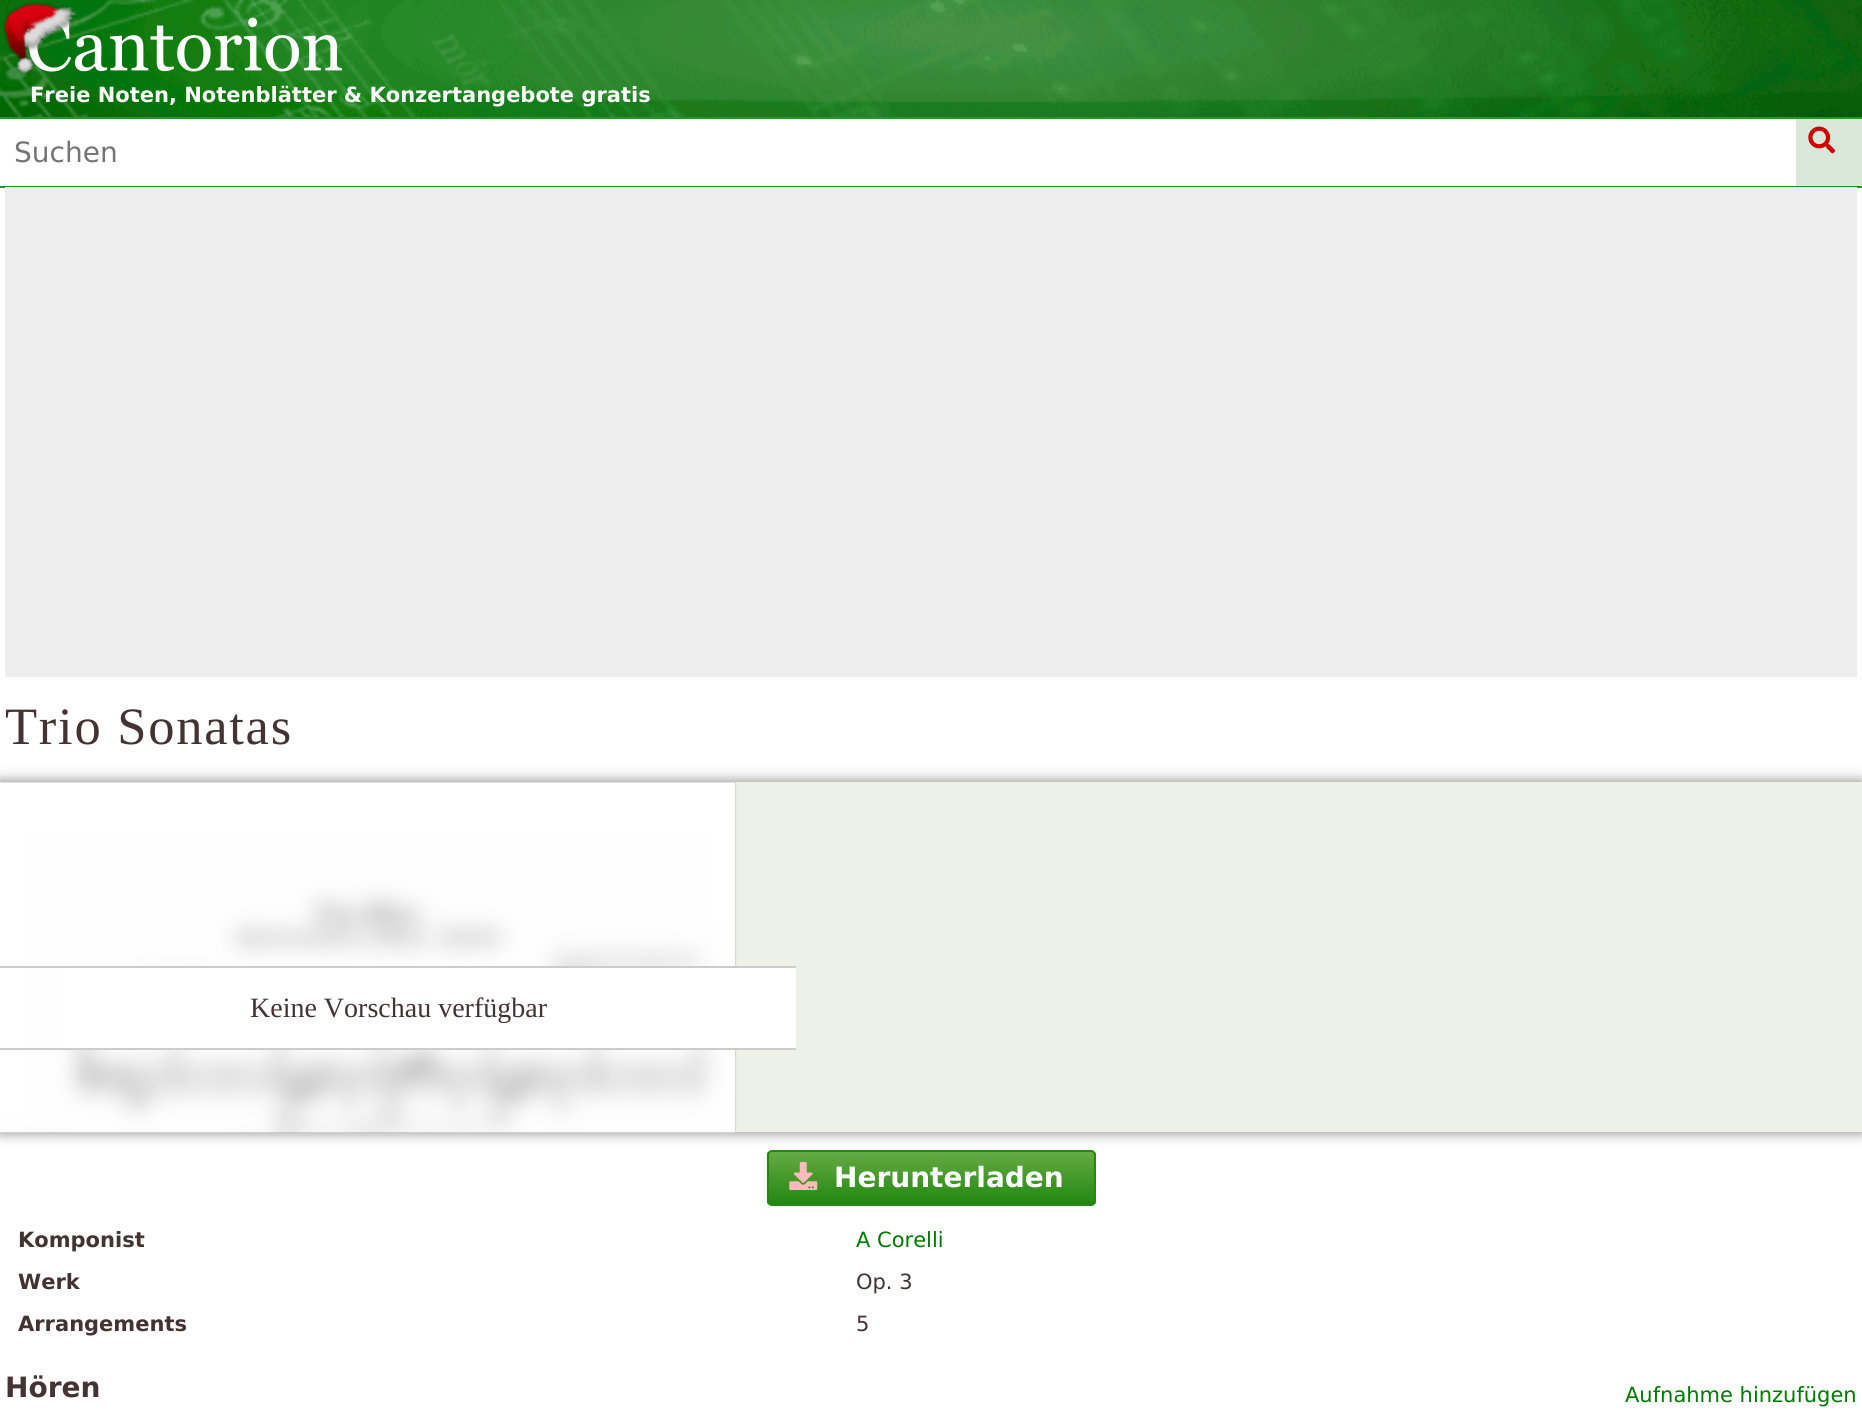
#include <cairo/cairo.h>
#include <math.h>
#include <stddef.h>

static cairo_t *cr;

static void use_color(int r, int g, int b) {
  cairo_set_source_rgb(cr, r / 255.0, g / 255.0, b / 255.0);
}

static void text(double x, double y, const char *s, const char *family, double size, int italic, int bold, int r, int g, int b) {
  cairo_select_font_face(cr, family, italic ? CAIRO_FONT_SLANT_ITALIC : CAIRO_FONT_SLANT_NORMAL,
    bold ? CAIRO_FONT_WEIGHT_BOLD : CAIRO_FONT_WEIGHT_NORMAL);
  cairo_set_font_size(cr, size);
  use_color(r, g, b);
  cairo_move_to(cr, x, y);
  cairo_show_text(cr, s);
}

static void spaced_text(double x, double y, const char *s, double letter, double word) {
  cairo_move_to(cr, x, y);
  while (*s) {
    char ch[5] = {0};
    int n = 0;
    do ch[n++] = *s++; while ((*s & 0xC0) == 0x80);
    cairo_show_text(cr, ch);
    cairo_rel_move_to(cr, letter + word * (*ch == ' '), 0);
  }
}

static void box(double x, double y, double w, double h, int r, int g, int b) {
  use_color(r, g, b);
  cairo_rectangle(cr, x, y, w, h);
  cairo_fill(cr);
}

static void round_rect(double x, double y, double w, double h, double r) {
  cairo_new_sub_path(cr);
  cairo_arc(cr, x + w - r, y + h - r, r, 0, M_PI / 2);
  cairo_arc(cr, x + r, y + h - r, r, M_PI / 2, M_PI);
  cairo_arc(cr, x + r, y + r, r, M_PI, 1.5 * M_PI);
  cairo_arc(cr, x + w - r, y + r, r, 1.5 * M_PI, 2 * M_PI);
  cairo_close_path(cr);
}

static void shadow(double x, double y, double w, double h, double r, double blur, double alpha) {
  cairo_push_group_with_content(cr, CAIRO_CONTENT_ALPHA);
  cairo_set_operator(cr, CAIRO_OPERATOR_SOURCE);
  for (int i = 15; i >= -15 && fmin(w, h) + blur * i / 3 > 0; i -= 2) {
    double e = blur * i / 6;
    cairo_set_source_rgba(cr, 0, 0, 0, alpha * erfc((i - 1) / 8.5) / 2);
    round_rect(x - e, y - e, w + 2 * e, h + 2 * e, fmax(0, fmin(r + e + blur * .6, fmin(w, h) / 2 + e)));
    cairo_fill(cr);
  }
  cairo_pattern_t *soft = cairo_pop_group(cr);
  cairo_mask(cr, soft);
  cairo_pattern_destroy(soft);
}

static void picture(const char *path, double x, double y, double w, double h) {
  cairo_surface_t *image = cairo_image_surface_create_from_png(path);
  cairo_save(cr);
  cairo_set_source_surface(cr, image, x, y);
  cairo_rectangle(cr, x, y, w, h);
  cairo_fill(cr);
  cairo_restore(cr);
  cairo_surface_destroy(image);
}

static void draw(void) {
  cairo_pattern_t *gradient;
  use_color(255, 255, 255);
  cairo_paint(cr);
  picture("img_01.png", 0, 0, 1862, 117);
  picture("img_03.png", 29, 17, 313, 55);
  picture("img_02.png", 2, 2, 75, 73);
  box(0, 117, 1862, 2, 34, 153, 34);
  box(0, 186, 1862, 2, 34, 153, 34);
  box(1796, 119, 66, 67, 217, 232, 217);
  picture("img_04.png", 1808, 126, 28, 28);
  box(5, 187, 1852, 490, 238, 238, 238);
  use_color(0, 0, 0);
  shadow(0, 782, 1862, 350, 0, 7, 0.5);
  box(0, 782, 1862, 350, 238, 241, 231);
  cairo_save(cr);
  cairo_rectangle(cr, 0, 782, 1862, 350);
  cairo_clip(cr);
  use_color(0, 0, 0);
  shadow(0, 782, 735, 405, 0, 1, 0.3);
  cairo_restore(cr);
  picture("img_05.png", 0, 782, 735, 351);
  box(57, 968, 739, 80, 255, 255, 255);
  box(0, 966, 796, 2, 204, 204, 204);
  box(0, 1048, 796, 2, 204, 204, 204);
  cairo_save(cr);
  round_rect(767, 1150, 329, 56, 5);
  cairo_clip(cr);
  gradient = cairo_pattern_create_linear(931, 1152, 931, 1204);
  cairo_pattern_add_color_stop_rgba(gradient, 0, 0.4, 0.667, 0.267, 1);
  cairo_pattern_add_color_stop_rgba(gradient, 1, 0.133, 0.533, 0.067, 1);
  cairo_set_source(cr, gradient);
  cairo_pattern_destroy(gradient);
  cairo_rectangle(cr, 767, 1152, 329, 52);
  cairo_fill(cr);
  cairo_restore(cr);
  round_rect(768, 1151, 327, 54, 4);
  use_color(34, 136, 17);
  cairo_stroke(cr);
  picture("img_06.png", 789, 1162, 29, 28);
  text(30, 102, "Freie Noten, Notenblätter & Konzertangebote gratis", "DejaVu Sans", 21, 0, 1, 255, 255, 255);
  text(14, 162, "Suchen", "DejaVu Sans", 28, 0, 0, 117, 117, 117);
  cairo_select_font_face(cr, "Liberation Serif", CAIRO_FONT_SLANT_NORMAL, CAIRO_FONT_WEIGHT_NORMAL);
  cairo_set_font_size(cr, 52.5);
  use_color(68, 51, 51);
  spaced_text(5, 744, "Trio Sonatas", 1.75, 0);
  text(250, 1017, "Keine Vorschau verfügbar", "Liberation Serif", 28, 0, 0, 68, 51, 51);
  text(834, 1187, "Herunterladen", "DejaVu Sans", 28, 0, 1, 255, 255, 255);
  text(18, 1247, "Komponist", "DejaVu Sans", 21, 0, 1, 68, 51, 51);
  text(856, 1247, "A Corelli", "DejaVu Sans", 21, 0, 0, 0, 121, 0);
  text(18, 1289, "Werk", "DejaVu Sans", 21, 0, 1, 68, 51, 51);
  text(856, 1289, "Op. 3", "DejaVu Sans", 21, 0, 0, 68, 51, 51);
  text(18, 1331, "Arrangements", "DejaVu Sans", 21, 0, 1, 68, 51, 51);
  text(856, 1331, "5", "DejaVu Sans", 21, 0, 0, 68, 51, 51);
  text(5, 1397, "Hören", "DejaVu Sans", 28, 0, 1, 68, 51, 51);
  text(1625, 1402, "Aufnahme hinzufügen", "DejaVu Sans", 21, 0, 0, 0, 121, 0);
}

int main(void) {
  cairo_surface_t *surface = cairo_image_surface_create(CAIRO_FORMAT_RGB24, 1862, 1420);
  cr = cairo_create(surface);
  cairo_font_options_t *options = cairo_font_options_create();
  cairo_font_options_set_hint_metrics(options, CAIRO_HINT_METRICS_OFF);
  cairo_font_options_set_hint_style(options, CAIRO_HINT_STYLE_NONE);
  cairo_set_font_options(cr, options);
  cairo_set_miter_limit(cr, 4);
  draw();
  cairo_surface_write_to_png(surface, "out.png");
  cairo_font_options_destroy(options);
  cairo_destroy(cr);
  cairo_surface_destroy(surface);
  return 0;
}
